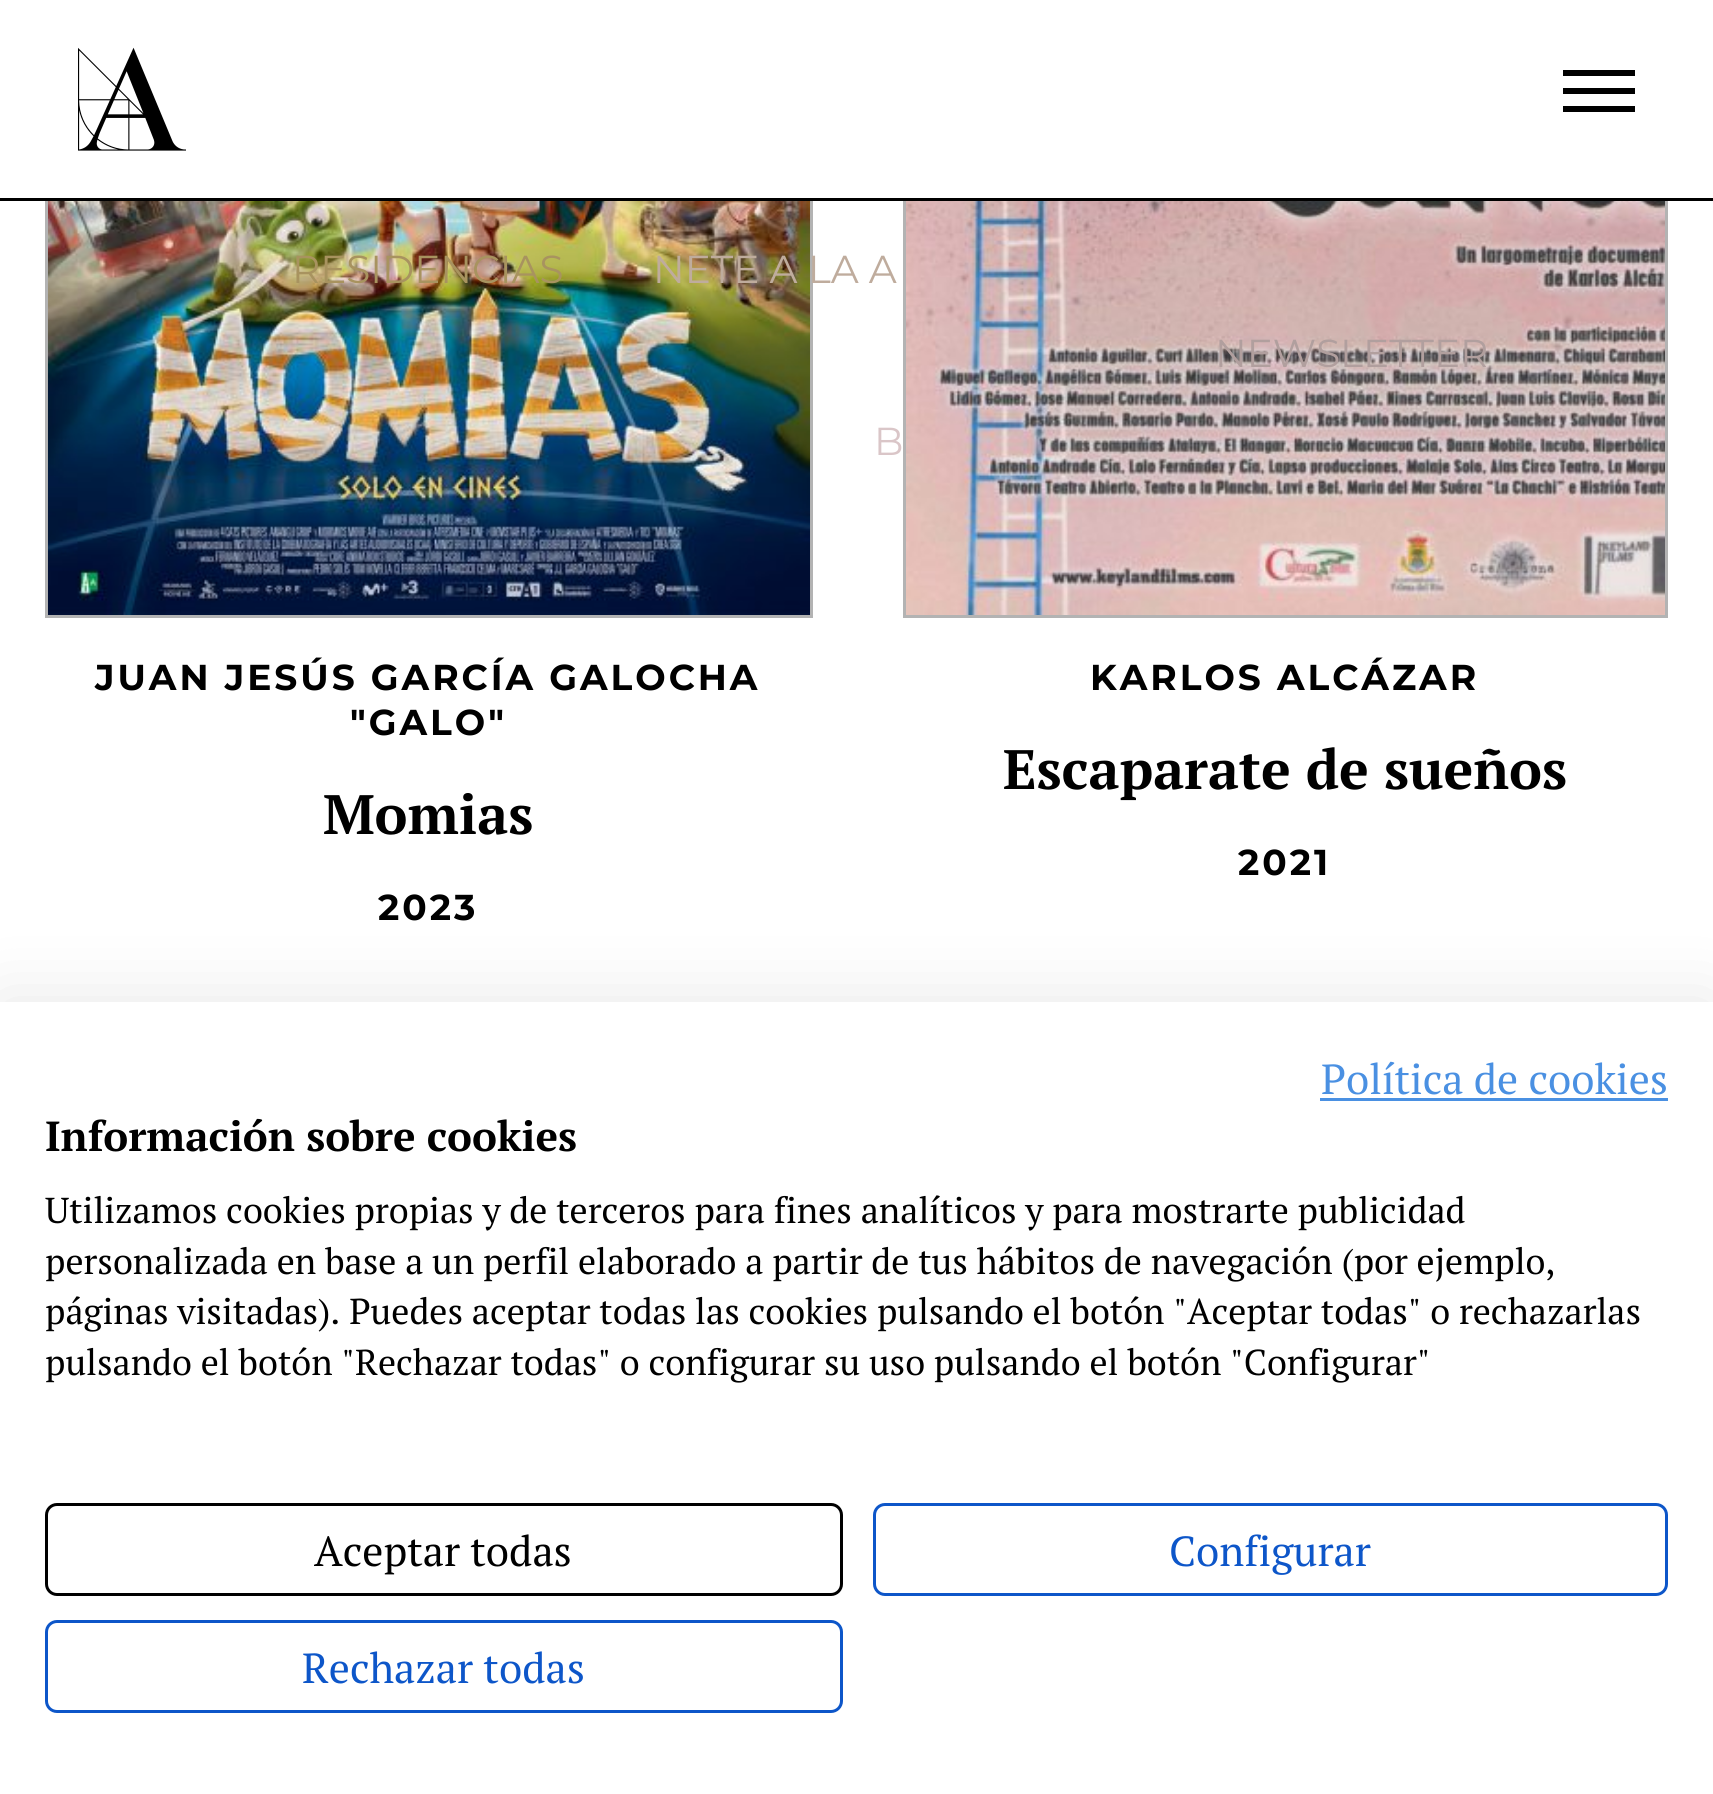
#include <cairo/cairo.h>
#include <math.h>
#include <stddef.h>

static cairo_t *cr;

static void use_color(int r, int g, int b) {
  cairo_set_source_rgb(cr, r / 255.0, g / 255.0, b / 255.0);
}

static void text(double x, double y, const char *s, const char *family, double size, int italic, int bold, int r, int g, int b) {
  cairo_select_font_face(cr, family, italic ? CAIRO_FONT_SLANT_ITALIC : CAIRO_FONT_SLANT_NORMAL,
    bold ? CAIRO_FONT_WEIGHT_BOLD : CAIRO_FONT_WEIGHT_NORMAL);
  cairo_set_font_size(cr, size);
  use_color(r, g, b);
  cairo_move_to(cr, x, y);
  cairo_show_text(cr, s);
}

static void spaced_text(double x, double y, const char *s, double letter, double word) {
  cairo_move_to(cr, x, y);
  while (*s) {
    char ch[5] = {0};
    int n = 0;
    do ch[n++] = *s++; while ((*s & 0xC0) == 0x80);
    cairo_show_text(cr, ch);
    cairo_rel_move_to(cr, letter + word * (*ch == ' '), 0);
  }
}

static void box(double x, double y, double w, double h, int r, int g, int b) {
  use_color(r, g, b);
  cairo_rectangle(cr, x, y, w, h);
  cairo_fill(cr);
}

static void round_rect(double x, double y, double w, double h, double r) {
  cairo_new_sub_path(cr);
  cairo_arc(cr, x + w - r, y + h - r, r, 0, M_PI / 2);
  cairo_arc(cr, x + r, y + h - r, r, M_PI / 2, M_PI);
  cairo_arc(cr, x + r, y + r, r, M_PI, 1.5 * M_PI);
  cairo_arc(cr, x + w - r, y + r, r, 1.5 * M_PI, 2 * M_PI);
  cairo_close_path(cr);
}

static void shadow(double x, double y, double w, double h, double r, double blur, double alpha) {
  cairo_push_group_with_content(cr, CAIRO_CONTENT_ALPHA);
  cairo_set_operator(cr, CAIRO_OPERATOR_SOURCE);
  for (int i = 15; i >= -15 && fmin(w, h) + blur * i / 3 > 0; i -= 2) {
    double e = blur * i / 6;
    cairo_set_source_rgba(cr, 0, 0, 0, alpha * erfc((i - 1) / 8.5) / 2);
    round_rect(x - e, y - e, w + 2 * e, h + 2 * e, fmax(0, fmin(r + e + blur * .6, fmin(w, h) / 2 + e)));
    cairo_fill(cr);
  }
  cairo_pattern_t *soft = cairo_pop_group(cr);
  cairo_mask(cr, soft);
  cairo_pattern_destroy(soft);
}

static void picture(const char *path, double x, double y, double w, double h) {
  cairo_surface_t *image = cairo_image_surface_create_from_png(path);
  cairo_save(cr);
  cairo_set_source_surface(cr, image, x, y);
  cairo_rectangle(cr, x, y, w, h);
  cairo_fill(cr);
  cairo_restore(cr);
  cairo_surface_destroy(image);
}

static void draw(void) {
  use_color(255, 255, 255);
  cairo_paint(cr);
  cairo_rectangle(cr, 46.5, -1.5, 765, 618);
  use_color(179, 179, 179);
  cairo_set_line_width(cr, 3);
  cairo_stroke(cr);
  cairo_rectangle(cr, 904.5, -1.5, 762, 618);
  cairo_stroke(cr);
  box(45, 0, 1623, 198, 255, 255, 255);
  box(0, 198, 1713, 3, 0, 0, 0);
  picture("img_01.png", 78, 47, 108, 104);
  cairo_new_path(cr);
  cairo_move_to(cr, 1563, 70);
  cairo_line_to(cr, 1635, 70);
  cairo_line_to(cr, 1635, 76);
  cairo_line_to(cr, 1563, 76);
  cairo_close_path(cr);
  cairo_move_to(cr, 1563, 88);
  cairo_line_to(cr, 1635, 88);
  cairo_line_to(cr, 1635, 94);
  cairo_line_to(cr, 1563, 94);
  cairo_close_path(cr);
  cairo_move_to(cr, 1563, 106);
  cairo_line_to(cr, 1635, 106);
  cairo_line_to(cr, 1635, 112);
  cairo_line_to(cr, 1563, 112);
  cairo_close_path(cr);
  cairo_fill(cr);
  picture("img_02.png", 48, 201, 762, 414);
  picture("img_03.png", 906, 201, 759, 414);
  use_color(0, 0, 0);
  shadow(0, 1002, 1713, 792, 0, 36, 0.1);
  box(0, 1002, 1713, 792, 255, 255, 255);
  box(1320, 1098, 348, 3, 74, 144, 226);
  round_rect(46.5, 1504.5, 795, 90, 10.5);
  use_color(0, 0, 0);
  cairo_stroke(cr);
  round_rect(874.5, 1504.5, 792, 90, 10.5);
  use_color(13, 86, 201);
  cairo_stroke(cr);
  round_rect(46.5, 1621.5, 795, 90, 10.5);
  cairo_stroke(cr);
  text(292, 283, "RESIDENCIAS", "Montserrat", 39, 0, 0, 168, 147, 95);
  text(653, 283, "NETE A LA A", "Montserrat", 39, 0, 0, 191, 172, 157);
  text(1215, 367, "NEWSLETTER", "Montserrat", 39, 0, 0, 177, 159, 158);
  text(874, 455, "B", "Montserrat", 39, 0, 0, 218, 198, 200);
  cairo_select_font_face(cr, "Montserrat", CAIRO_FONT_SLANT_NORMAL, CAIRO_FONT_WEIGHT_BOLD);
  cairo_set_font_size(cr, 36);
  use_color(0, 0, 0);
  spaced_text(95, 690, "JUAN JESÚS GARCÍA GALOCHA", 3, 0);
  spaced_text(350, 735, "\"GALO\"", 3, 0);
  text(323, 834, "Momias", "PT Serif", 55.5, 0, 1, 0, 0, 0);
  cairo_select_font_face(cr, "Montserrat", CAIRO_FONT_SLANT_NORMAL, CAIRO_FONT_WEIGHT_BOLD);
  cairo_set_font_size(cr, 36);
  spaced_text(378, 920, "2023", 3, 0);
  spaced_text(1090, 690, "KARLOS ALCÁZAR", 3, 0);
  text(1003, 789, "Escaparate de sueños", "PT Serif", 55.5, 0, 1, 0, 0, 0);
  cairo_select_font_face(cr, "Montserrat", CAIRO_FONT_SLANT_NORMAL, CAIRO_FONT_WEIGHT_BOLD);
  cairo_set_font_size(cr, 36);
  spaced_text(1238, 875, "2021", 3, 0);
  text(1321, 1094, "Política de cookies", "PT Serif", 42, 0, 0, 74, 144, 226);
  text(45, 1151, "Información sobre cookies", "PT Serif", 42, 0, 1, 0, 0, 0);
  text(45, 1223, "Utilizamos cookies propias y de terceros para fines analíticos y para mostrarte publicidad", "PT Serif", 36, 0, 0, 0, 0, 0);
  text(45, 1274, "personalizada en base a un perfil elaborado a partir de tus hábitos de navegación (por ejemplo,", "PT Serif", 36, 0, 0, 0, 0, 0);
  text(45, 1324, "páginas visitadas). Puedes aceptar todas las cookies pulsando el botón \"Aceptar todas\" o rechazarlas", "PT Serif", 36, 0, 0, 0, 0, 0);
  text(45, 1375, "pulsando el botón \"Rechazar todas\" o configurar su uso pulsando el botón \"Configurar\"", "PT Serif", 36, 0, 0, 0, 0, 0);
  text(314, 1566, "Aceptar todas", "PT Serif", 42, 0, 0, 0, 0, 0);
  text(1169, 1566, "Configurar", "PT Serif", 42, 0, 0, 13, 86, 201);
  text(302, 1683, "Rechazar todas", "PT Serif", 42, 0, 0, 13, 86, 201);
}

int main(void) {
  cairo_surface_t *surface = cairo_image_surface_create(CAIRO_FORMAT_RGB24, 1713, 1794);
  cr = cairo_create(surface);
  cairo_font_options_t *options = cairo_font_options_create();
  cairo_font_options_set_hint_metrics(options, CAIRO_HINT_METRICS_OFF);
  cairo_font_options_set_hint_style(options, CAIRO_HINT_STYLE_NONE);
  cairo_set_font_options(cr, options);
  cairo_set_miter_limit(cr, 4);
  draw();
  cairo_surface_write_to_png(surface, "out.png");
  cairo_font_options_destroy(options);
  cairo_destroy(cr);
  cairo_surface_destroy(surface);
  return 0;
}
